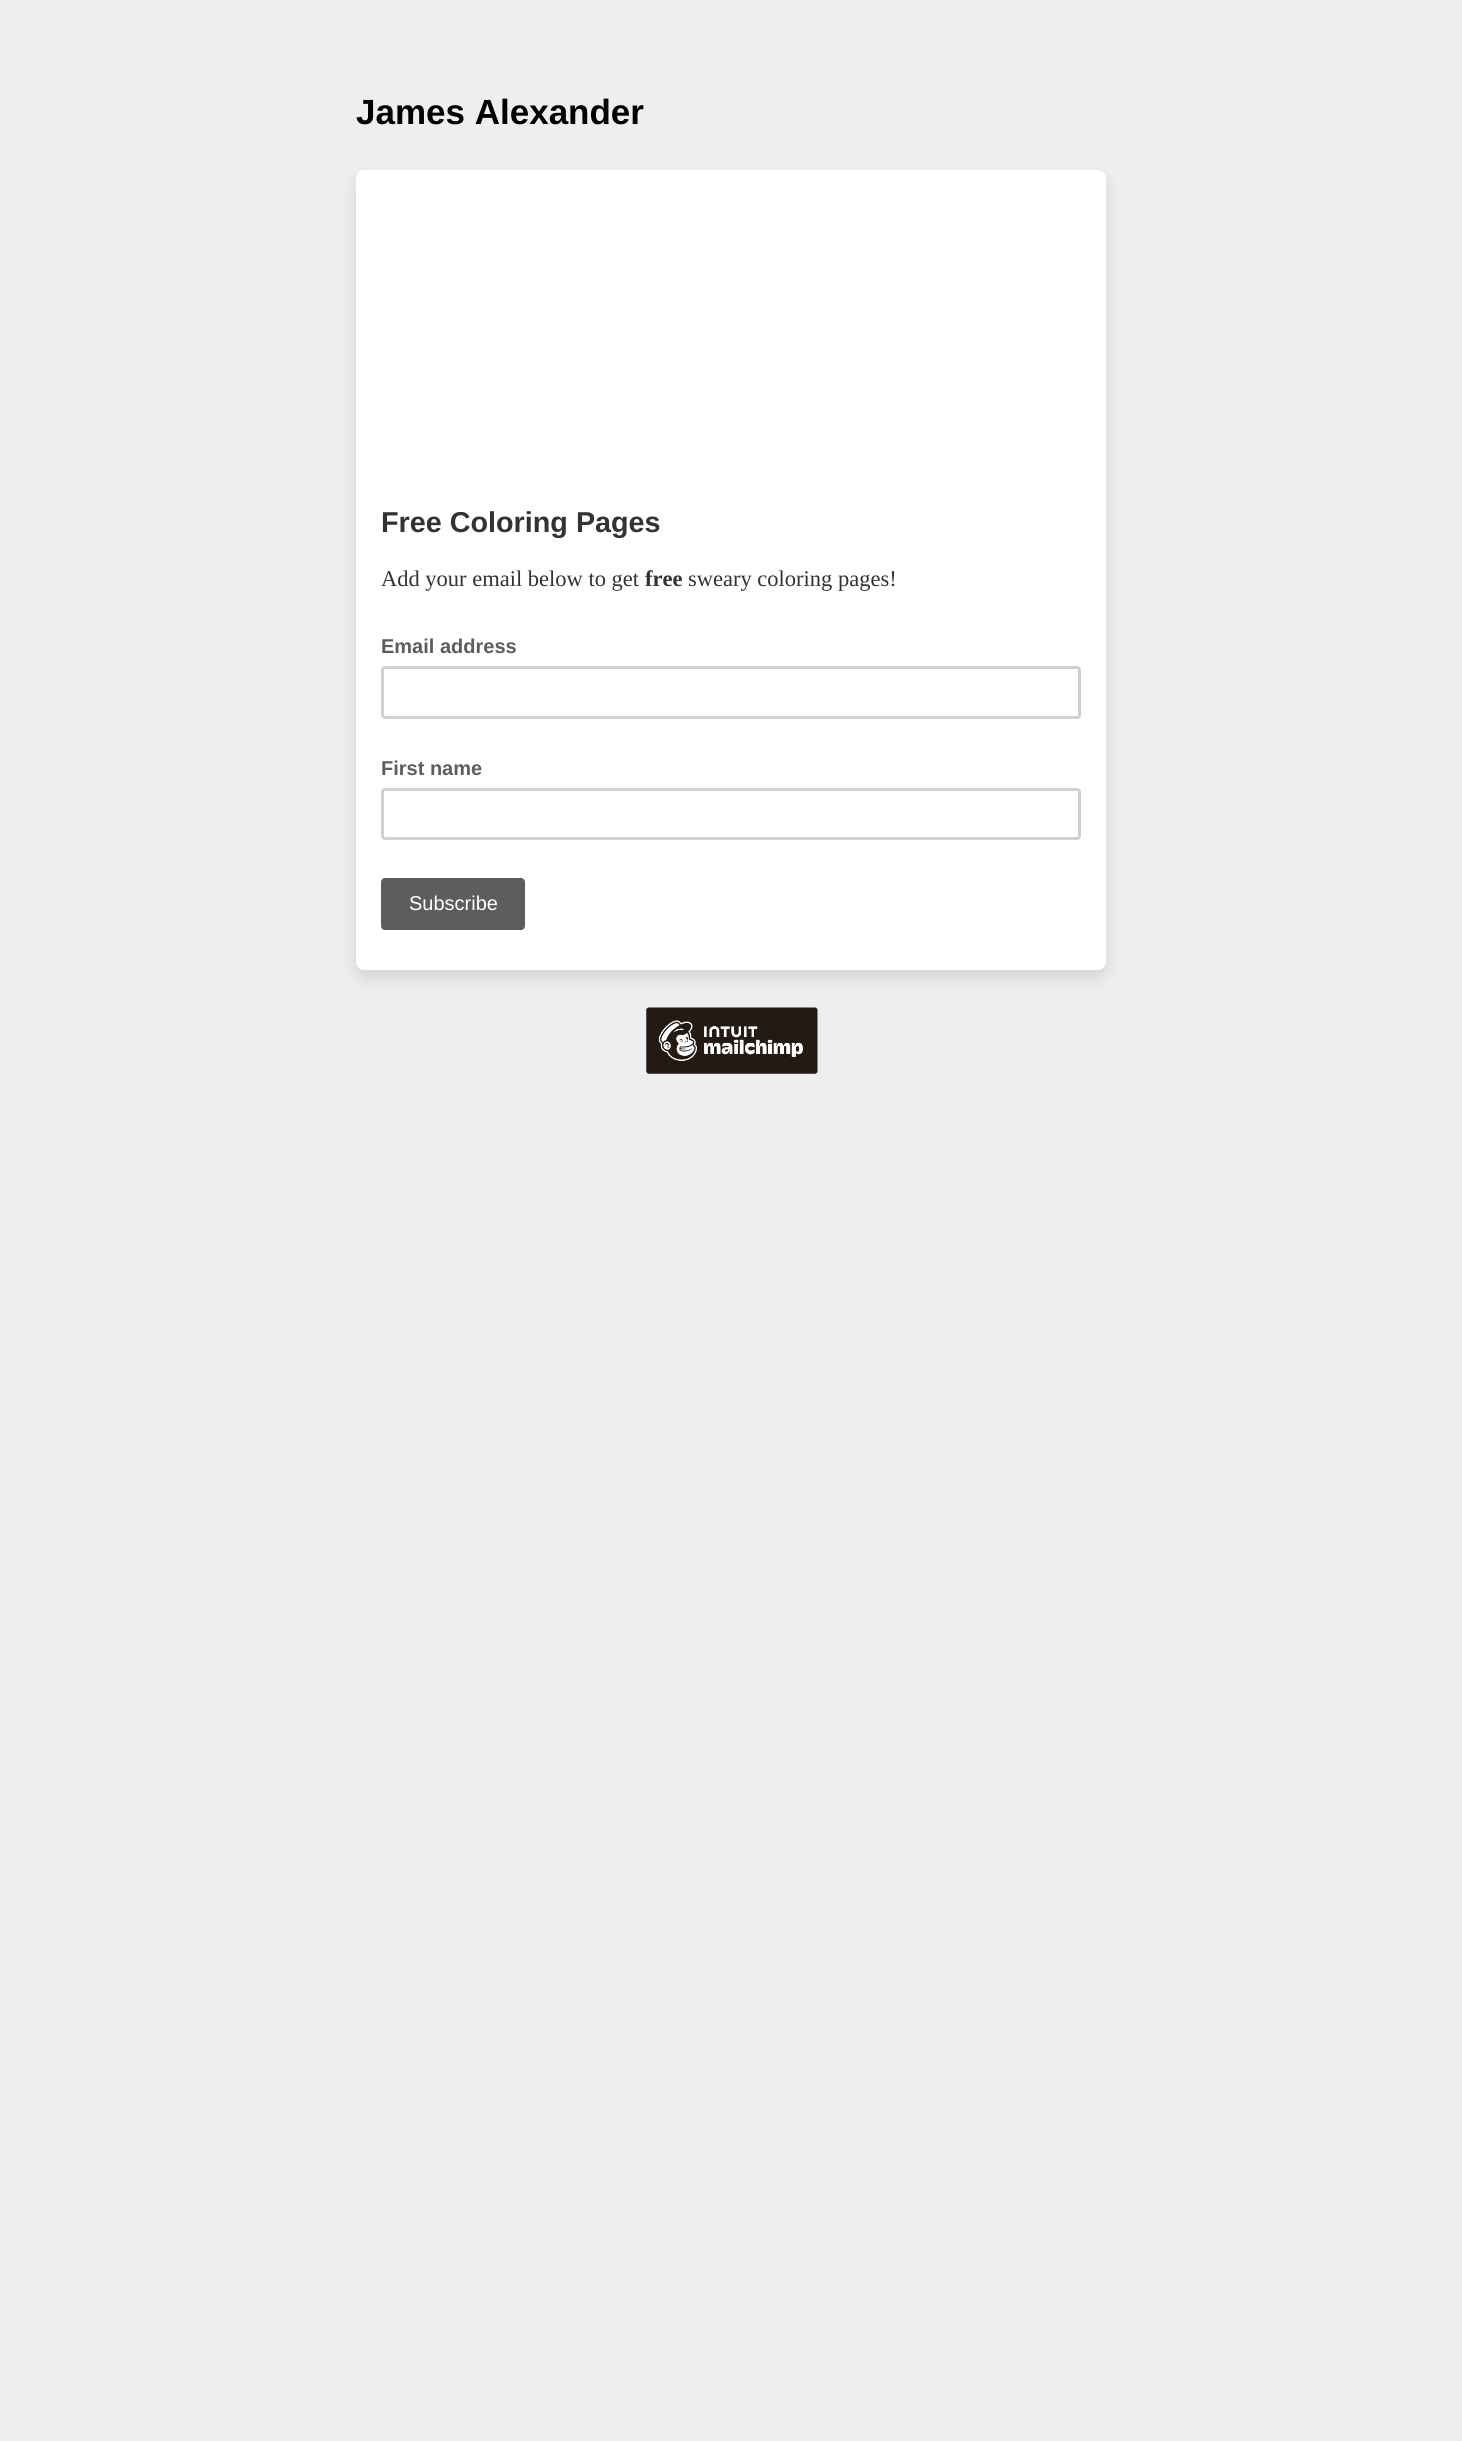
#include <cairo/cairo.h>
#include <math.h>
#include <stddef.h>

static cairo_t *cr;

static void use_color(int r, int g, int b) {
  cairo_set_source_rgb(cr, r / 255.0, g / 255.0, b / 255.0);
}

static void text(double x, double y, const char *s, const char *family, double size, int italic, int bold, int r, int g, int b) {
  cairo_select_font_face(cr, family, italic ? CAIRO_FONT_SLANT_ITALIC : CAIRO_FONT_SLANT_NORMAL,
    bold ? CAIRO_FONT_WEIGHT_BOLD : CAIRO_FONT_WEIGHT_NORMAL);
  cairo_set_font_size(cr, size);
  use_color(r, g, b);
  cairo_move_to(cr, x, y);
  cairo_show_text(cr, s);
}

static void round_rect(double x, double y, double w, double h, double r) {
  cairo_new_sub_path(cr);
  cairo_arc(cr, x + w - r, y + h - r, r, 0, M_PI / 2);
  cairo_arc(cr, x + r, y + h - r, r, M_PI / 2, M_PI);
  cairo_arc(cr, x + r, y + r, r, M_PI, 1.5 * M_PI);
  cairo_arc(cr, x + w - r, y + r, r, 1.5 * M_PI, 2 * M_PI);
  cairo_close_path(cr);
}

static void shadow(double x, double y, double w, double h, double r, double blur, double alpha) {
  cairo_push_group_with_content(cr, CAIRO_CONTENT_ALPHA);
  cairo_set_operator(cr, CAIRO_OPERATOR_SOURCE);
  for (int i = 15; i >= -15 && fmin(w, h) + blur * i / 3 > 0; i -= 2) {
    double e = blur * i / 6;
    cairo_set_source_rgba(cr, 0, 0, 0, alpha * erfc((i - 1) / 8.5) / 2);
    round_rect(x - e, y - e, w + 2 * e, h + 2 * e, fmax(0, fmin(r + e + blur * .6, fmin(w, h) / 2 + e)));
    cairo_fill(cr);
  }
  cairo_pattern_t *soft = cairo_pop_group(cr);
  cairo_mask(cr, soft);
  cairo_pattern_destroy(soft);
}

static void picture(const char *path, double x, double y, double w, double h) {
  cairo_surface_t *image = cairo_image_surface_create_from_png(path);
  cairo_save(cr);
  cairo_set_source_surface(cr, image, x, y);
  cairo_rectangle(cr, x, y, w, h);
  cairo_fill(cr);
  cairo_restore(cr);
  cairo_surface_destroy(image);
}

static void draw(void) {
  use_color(238, 238, 238);
  cairo_paint(cr);
  use_color(13, 18, 22);
  shadow(356, 178, 750, 800, 8, 7.5, 0.12);
  use_color(255, 255, 255);
  round_rect(356, 170, 750, 800, 8);
  cairo_fill(cr);
  round_rect(382.5, 667.5, 697, 50, 2.5);
  use_color(208, 208, 208);
  cairo_set_line_width(cr, 3);
  cairo_stroke(cr);
  round_rect(382.5, 789.5, 697, 49, 2.5);
  cairo_stroke(cr);
  use_color(93, 93, 93);
  round_rect(381, 878, 144, 52, 4);
  cairo_fill(cr);
  picture("img_01.png", 646, 1007, 172, 67);
  text(356, 124, "James Alexander", "Liberation Sans", 35, 0, 1, 0, 0, 0);
  text(381, 532, "Free Coloring Pages", "Liberation Sans", 28.75, 0, 1, 51, 51, 51);
  text(381, 586, "Add your email below to get", "Liberation Serif", 22.5, 0, 0, 51, 51, 51);
  text(645, 586, "free", "Liberation Serif", 22.5, 0, 1, 51, 51, 51);
  text(688, 586, "sweary coloring pages!", "Liberation Serif", 22.5, 0, 0, 51, 51, 51);
  text(381, 653, "Email address", "Liberation Sans", 20, 0, 1, 93, 93, 93);
  text(381, 775, "First name", "Liberation Sans", 20, 0, 1, 93, 93, 93);
  text(409, 910, "Subscribe", "Liberation Sans", 20, 0, 0, 255, 255, 255);
}

int main(void) {
  cairo_surface_t *surface = cairo_image_surface_create(CAIRO_FORMAT_RGB24, 1462, 2441);
  cr = cairo_create(surface);
  cairo_font_options_t *options = cairo_font_options_create();
  cairo_font_options_set_hint_metrics(options, CAIRO_HINT_METRICS_OFF);
  cairo_font_options_set_hint_style(options, CAIRO_HINT_STYLE_NONE);
  cairo_set_font_options(cr, options);
  cairo_set_miter_limit(cr, 4);
  draw();
  cairo_surface_write_to_png(surface, "out.png");
  cairo_font_options_destroy(options);
  cairo_destroy(cr);
  cairo_surface_destroy(surface);
  return 0;
}
